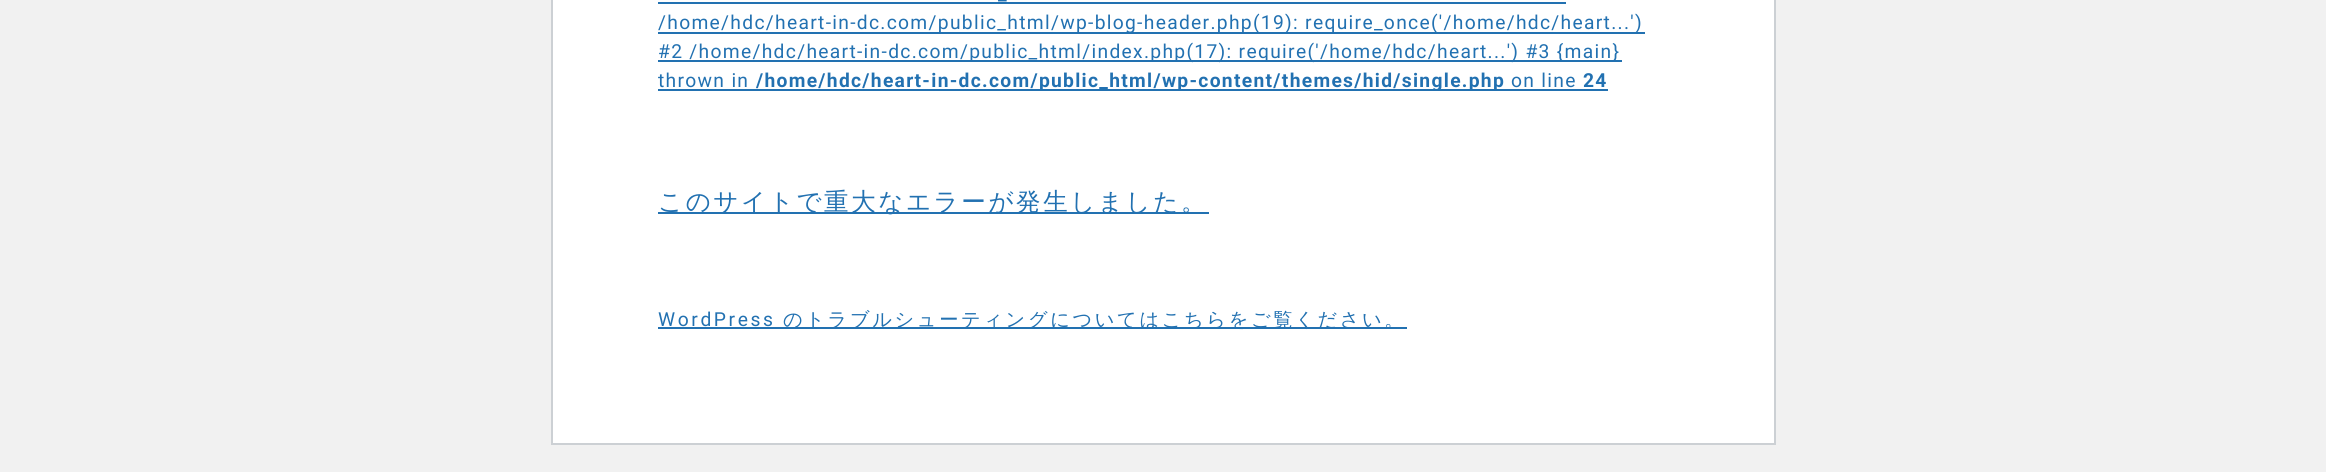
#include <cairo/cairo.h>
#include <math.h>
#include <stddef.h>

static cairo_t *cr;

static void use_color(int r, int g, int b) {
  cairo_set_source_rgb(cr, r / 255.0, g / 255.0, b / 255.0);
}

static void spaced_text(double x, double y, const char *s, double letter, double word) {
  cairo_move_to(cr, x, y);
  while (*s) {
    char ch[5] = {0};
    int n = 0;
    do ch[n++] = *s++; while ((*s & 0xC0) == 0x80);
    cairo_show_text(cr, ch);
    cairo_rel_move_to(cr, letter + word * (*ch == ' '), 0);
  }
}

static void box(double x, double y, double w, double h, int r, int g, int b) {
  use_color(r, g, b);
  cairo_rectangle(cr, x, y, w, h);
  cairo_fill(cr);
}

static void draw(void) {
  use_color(241, 241, 241);
  cairo_paint(cr);
  use_color(255, 255, 255);
  cairo_rectangle(cr, 552, -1, 1223, 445);
  cairo_fill_preserve(cr);
  use_color(204, 208, 212);
  cairo_stroke(cr);
  box(658, 2, 908, 2, 34, 113, 177);
  box(658, 32, 987, 2, 34, 113, 177);
  box(658, 60, 964, 2, 34, 113, 177);
  box(658, 89, 950, 2, 34, 113, 177);
  box(658, 212, 551, 2, 34, 113, 177);
  box(658, 327, 749, 2, 34, 113, 177);
  cairo_select_font_face(cr, "Roboto", CAIRO_FONT_SLANT_NORMAL, CAIRO_FONT_WEIGHT_NORMAL);
  cairo_set_font_size(cr, 19.25);
  spaced_text(998, 0, "_", 1.3, 0);
  spaced_text(658, 29, "/home/hdc/heart-in-dc.com/public_html/wp-blog-header.php(19): require_once('/home/hdc/heart...')", 1.3, 0);
  spaced_text(658, 58, "#2 /home/hdc/heart-in-dc.com/public_html/index.php(17): require('/home/hdc/heart...') #3 {main}", 1.3, 0);
  spaced_text(658, 87, "thrown in", 1.3, 0);
  cairo_select_font_face(cr, "Roboto", CAIRO_FONT_SLANT_NORMAL, CAIRO_FONT_WEIGHT_BOLD);
  spaced_text(756, 87, "/home/hdc/heart-in-dc.com/public_html/wp-content/themes/hid/single.php", 1.3, 0);
  cairo_select_font_face(cr, "Roboto", CAIRO_FONT_SLANT_NORMAL, CAIRO_FONT_WEIGHT_NORMAL);
  spaced_text(1511, 87, "on line", 1.3, 0);
  cairo_select_font_face(cr, "Roboto", CAIRO_FONT_SLANT_NORMAL, CAIRO_FONT_WEIGHT_BOLD);
  spaced_text(1583, 87, "24", 1.3, 0);
  cairo_select_font_face(cr, "WenQuanYi Zen Hei Medium", CAIRO_FONT_SLANT_NORMAL, CAIRO_FONT_WEIGHT_NORMAL);
  cairo_set_font_size(cr, 24.5);
  spaced_text(658, 210, "このサイトで重大なエラーが発生しました。", 2.6, 0);
  cairo_select_font_face(cr, "Roboto", CAIRO_FONT_SLANT_NORMAL, CAIRO_FONT_WEIGHT_NORMAL);
  cairo_set_font_size(cr, 19.25);
  spaced_text(658, 326, "WordPress", 2.6, 0);
  cairo_select_font_face(cr, "WenQuanYi Zen Hei Medium", CAIRO_FONT_SLANT_NORMAL, CAIRO_FONT_WEIGHT_NORMAL);
  spaced_text(783, 326, "のトラブルシューティングについてはこちらをご覧ください。", 2.6, 0);
}

int main(void) {
  cairo_surface_t *surface = cairo_image_surface_create(CAIRO_FORMAT_RGB24, 2326, 472);
  cr = cairo_create(surface);
  cairo_font_options_t *options = cairo_font_options_create();
  cairo_font_options_set_hint_metrics(options, CAIRO_HINT_METRICS_OFF);
  cairo_font_options_set_hint_style(options, CAIRO_HINT_STYLE_NONE);
  cairo_set_font_options(cr, options);
  cairo_set_miter_limit(cr, 4);
  draw();
  cairo_surface_write_to_png(surface, "out.png");
  cairo_font_options_destroy(options);
  cairo_destroy(cr);
  cairo_surface_destroy(surface);
  return 0;
}
